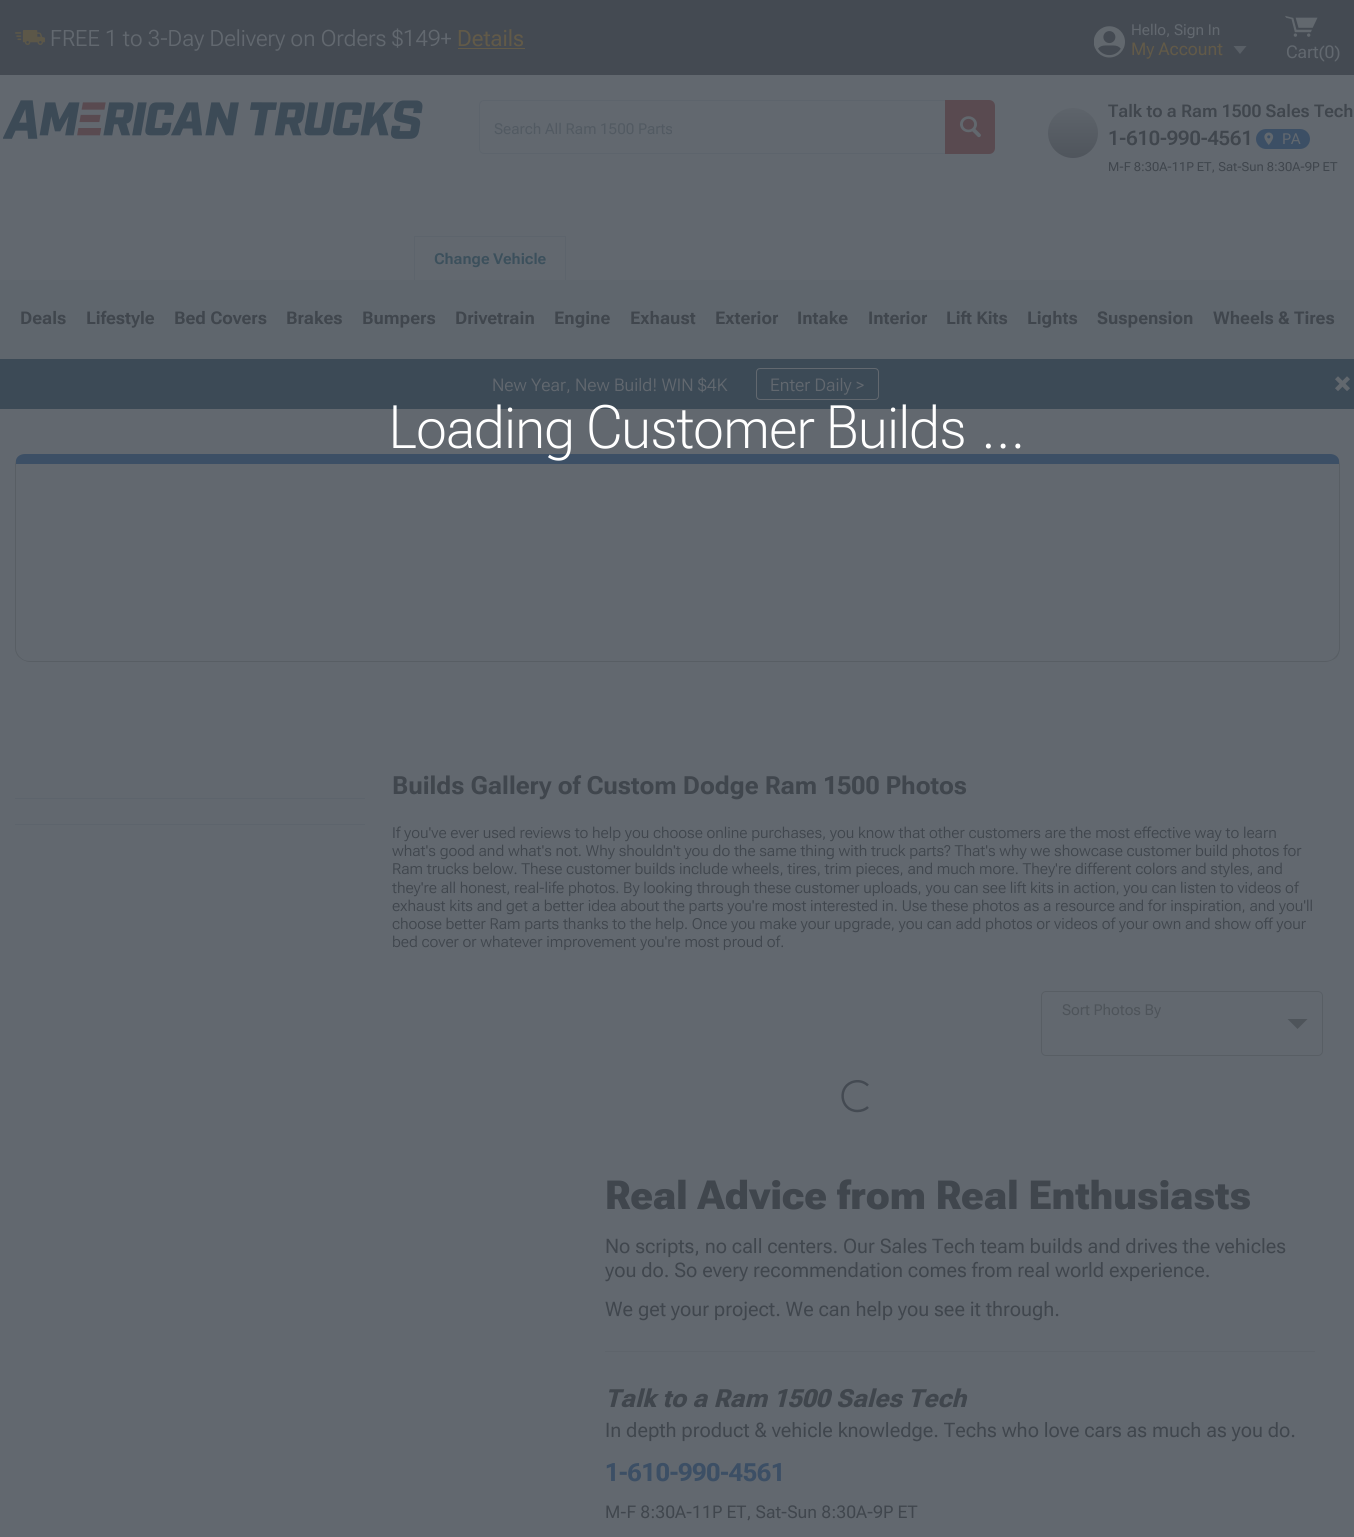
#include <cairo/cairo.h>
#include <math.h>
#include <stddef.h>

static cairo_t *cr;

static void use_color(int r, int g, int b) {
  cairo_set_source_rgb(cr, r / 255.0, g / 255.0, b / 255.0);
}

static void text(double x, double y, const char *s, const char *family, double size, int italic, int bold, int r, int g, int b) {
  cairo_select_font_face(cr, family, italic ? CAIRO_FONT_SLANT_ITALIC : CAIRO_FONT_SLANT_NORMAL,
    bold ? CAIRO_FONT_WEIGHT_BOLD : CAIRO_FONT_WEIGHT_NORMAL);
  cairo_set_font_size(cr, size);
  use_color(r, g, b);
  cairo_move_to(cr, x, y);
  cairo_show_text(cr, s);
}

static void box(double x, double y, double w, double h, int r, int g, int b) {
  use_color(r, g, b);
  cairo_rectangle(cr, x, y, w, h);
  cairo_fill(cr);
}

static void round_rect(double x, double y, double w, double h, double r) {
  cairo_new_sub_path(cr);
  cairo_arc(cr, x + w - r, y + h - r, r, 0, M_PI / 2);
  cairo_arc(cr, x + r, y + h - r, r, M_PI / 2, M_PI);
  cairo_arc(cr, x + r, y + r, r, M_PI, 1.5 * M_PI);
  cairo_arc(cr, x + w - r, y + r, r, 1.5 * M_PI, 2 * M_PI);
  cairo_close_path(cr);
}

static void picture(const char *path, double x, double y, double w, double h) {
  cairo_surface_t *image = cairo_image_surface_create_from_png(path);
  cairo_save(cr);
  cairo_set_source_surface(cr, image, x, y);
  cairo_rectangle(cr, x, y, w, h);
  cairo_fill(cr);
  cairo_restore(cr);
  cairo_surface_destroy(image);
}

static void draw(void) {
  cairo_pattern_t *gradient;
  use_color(98, 104, 111);
  cairo_paint(cr);
  box(0, 0, 1354, 75, 68, 74, 82);
  picture("img_01.png", 15, 30, 30, 15);
  box(458, 48, 67, 1, 98, 90, 72);
  picture("img_02.png", 1094, 26, 31, 32);
  use_color(89, 95, 102);
  cairo_new_path(cr);
  cairo_move_to(cr, 1240, 54);
  cairo_line_to(cr, 1233.5, 46);
  cairo_line_to(cr, 1246.5, 46);
  cairo_close_path(cr);
  cairo_fill(cr);
  picture("img_03.png", 1285, 15, 33, 22);
  picture("img_04.png", 3, 100, 420, 39);
  round_rect(479.5, 100.5, 511, 53, 4.5);
  use_color(93, 100, 108);
  cairo_set_line_width(cr, 1);
  cairo_stroke(cr);
  use_color(89, 74, 80);
  cairo_new_path(cr);
  cairo_move_to(cr, 945, 100);
  cairo_line_to(cr, 989, 100);
  cairo_curve_to(cr, 992.5, 100, 995, 102.5, 995, 106);
  cairo_line_to(cr, 995, 148);
  cairo_curve_to(cr, 995, 151.5, 992.5, 154, 989, 154);
  cairo_line_to(cr, 945, 154);
  cairo_close_path(cr);
  cairo_fill(cr);
  picture("img_05.png", 960, 116, 21, 22);
  gradient = cairo_pattern_create_linear(1073, 108, 1073, 158);
  cairo_pattern_add_color_stop_rgba(gradient, 0, 0.369, 0.392, 0.42, 1);
  cairo_pattern_add_color_stop_rgba(gradient, 1, 0.31, 0.333, 0.361, 1);
  cairo_set_source(cr, gradient);
  cairo_pattern_destroy(gradient);
  cairo_arc(cr, 1073, 133, 25, 0, 2 * M_PI);
  cairo_fill(cr);
  use_color(60, 79, 101);
  round_rect(1256, 129, 54, 20, 10);
  cairo_fill(cr);
  picture("img_06.png", 1264, 132, 10, 13);
  box(414, 236, 152, 1, 93, 100, 108);
  box(565, 236, 1, 45, 93, 100, 108);
  box(414, 236, 1, 45, 93, 100, 108);
  box(0, 280, 1354, 79, 95, 102, 109);
  box(0, 359, 1354, 50, 60, 74, 86);
  round_rect(756.5, 368.5, 122, 31, 3.5);
  use_color(98, 104, 111);
  cairo_stroke(cr);
  picture("img_07.png", 1335, 376, 15, 15);
  use_color(60, 79, 101);
  cairo_new_path(cr);
  cairo_move_to(cr, 25, 454);
  cairo_curve_to(cr, 21, 454, 17, 456, 16, 460);
  cairo_line_to(cr, 16, 464);
  cairo_line_to(cr, 1339, 464);
  cairo_line_to(cr, 1339, 460);
  cairo_curve_to(cr, 1338, 456, 1334, 454, 1330, 454);
  cairo_close_path(cr);
  cairo_fill(cr);
  use_color(88, 94, 100);
  cairo_new_path(cr);
  cairo_move_to(cr, 1340, 648);
  cairo_line_to(cr, 1340, 464);
  cairo_line_to(cr, 1339, 460);
  cairo_line_to(cr, 1339, 464);
  cairo_line_to(cr, 1339, 648);
  cairo_curve_to(cr, 1339, 652, 1337, 655, 1335, 657);
  cairo_line_to(cr, 1336, 658);
  cairo_curve_to(cr, 1338, 656, 1340, 652, 1340, 648);
  cairo_close_path(cr);
  cairo_fill(cr);
  cairo_new_path(cr);
  cairo_move_to(cr, 1336, 658);
  cairo_curve_to(cr, 1333, 660, 1329, 662, 1325, 662);
  cairo_line_to(cr, 30, 662);
  cairo_curve_to(cr, 26, 662, 22, 660, 20, 658);
  cairo_line_to(cr, 20, 657);
  cairo_curve_to(cr, 23, 660, 26, 661, 30, 661);
  cairo_line_to(cr, 1325, 661);
  cairo_curve_to(cr, 1329, 661, 1332, 660, 1335, 657);
  cairo_close_path(cr);
  cairo_fill(cr);
  cairo_new_path(cr);
  cairo_move_to(cr, 15, 464);
  cairo_line_to(cr, 15, 648);
  cairo_curve_to(cr, 15, 652, 17, 656, 20, 658);
  cairo_line_to(cr, 20, 657);
  cairo_curve_to(cr, 18, 655, 16, 652, 16, 648);
  cairo_line_to(cr, 16, 464);
  cairo_line_to(cr, 16, 460);
  cairo_close_path(cr);
  cairo_fill(cr);
  box(15, 798, 350, 1, 93, 100, 108);
  box(15, 824, 350, 1, 93, 100, 108);
  round_rect(1041.5, 991.5, 281, 64, 4.5);
  use_color(88, 94, 100);
  cairo_stroke(cr);
  use_color(78, 84, 90);
  cairo_new_path(cr);
  cairo_move_to(cr, 1287.5, 1019);
  cairo_line_to(cr, 1307.5, 1019);
  cairo_line_to(cr, 1297.5, 1029);
  cairo_close_path(cr);
  cairo_fill(cr);
  cairo_new_path(cr);
  cairo_move_to(cr, 868, 1107);
  cairo_curve_to(cr, 865.5, 1109.5, 861.5, 1111, 857.5, 1111);
  cairo_curve_to(cr, 839.5, 1111, 837, 1085, 854.5, 1081.5);
  cairo_curve_to(cr, 859.5, 1080.5, 864.5, 1082, 868, 1085.5);
  use_color(68, 74, 82);
  cairo_set_line_width(cr, 2.5);
  cairo_stroke(cr);
  box(605, 1351, 710, 1, 94, 100, 107);
  text(50, 46, "FREE 1 to 3-Day Delivery on Orders $149+", "Roboto Flex Light", 22.5, 0, 0, 98, 104, 111);
  text(457, 46, "Details", "Roboto Flex", 22.5, 0, 0, 98, 90, 72);
  text(1131, 35, "Hello, Sign In", "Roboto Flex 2", 15, 0, 0, 98, 104, 111);
  text(1131, 55, "My Account", "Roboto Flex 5", 17.5, 0, 0, 98, 90, 72);
  text(1286, 58, "Cart(0)", "Roboto Flex 5", 17.5, 0, 0, 98, 104, 111);
  text(494, 134, "Search All Ram 1500 Parts", "Roboto Flex 2", 15, 0, 0, 82, 90, 98);
  text(1108, 117, "Talk to a Ram 1500 Sales Tech", "Roboto Flex SemiBold", 17.5, 0, 0, 64, 70, 77);
  text(1108, 145, "1-610-990-4561", "Roboto Flex SemiBold", 20, 0, 0, 64, 70, 77);
  text(1282, 144, "PA", "Roboto Flex 2", 15, 0, 0, 98, 104, 111);
  text(1108, 171, "M-F 8:30A-11P ET, Sat-Sun 8:30A-9P ET", "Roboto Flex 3", 12.5, 0, 0, 64, 70, 77);
  text(434, 264, "Change Vehicle", "Roboto Flex 2", 15, 0, 1, 60, 80, 92);
  text(20, 324, "Deals", "Roboto Flex 3", 17.5, 0, 1, 64, 70, 77);
  text(86, 324, "Lifestyle", "Roboto Flex 3", 17.5, 0, 1, 64, 70, 77);
  text(174, 324, "Bed Covers", "Roboto Flex 3", 17.5, 0, 1, 64, 70, 77);
  text(286, 324, "Brakes", "Roboto Flex 3", 17.5, 0, 1, 64, 70, 77);
  text(362, 324, "Bumpers", "Roboto Flex 3", 17.5, 0, 1, 64, 70, 77);
  text(455, 324, "Drivetrain", "Roboto Flex 3", 17.5, 0, 1, 64, 70, 77);
  text(554, 324, "Engine", "Roboto Flex 3", 17.5, 0, 1, 64, 70, 77);
  text(630, 324, "Exhaust", "Roboto Flex 3", 17.5, 0, 1, 64, 70, 77);
  text(715, 324, "Exterior", "Roboto Flex 3", 17.5, 0, 1, 64, 70, 77);
  text(797, 324, "Intake", "Roboto Flex 3", 17.5, 0, 1, 64, 70, 77);
  text(868, 324, "Interior", "Roboto Flex 3", 17.5, 0, 1, 64, 70, 77);
  text(946, 324, "Lift Kits", "Roboto Flex 3", 17.5, 0, 1, 64, 70, 77);
  text(1027, 324, "Lights", "Roboto Flex 3", 17.5, 0, 1, 64, 70, 77);
  text(1097, 324, "Suspension", "Roboto Flex 3", 17.5, 0, 1, 64, 70, 77);
  text(1213, 324, "Wheels & Tires", "Roboto Flex 3", 17.5, 0, 1, 64, 70, 77);
  text(492, 391, "New Year, New Build! WIN $4K", "Roboto Flex 3 Light", 17.5, 0, 0, 98, 104, 111);
  text(770, 391, "Enter Daily >", "Roboto Flex 3 Light", 17.5, 0, 0, 98, 104, 111);
  text(389, 448, "Loading Customer Builds", "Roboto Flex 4 Light", 60, 0, 0, 255, 255, 255);
  text(981, 448, "…", "Roboto Flex 4 Light", 60, 0, 0, 255, 255, 255);
  text(392, 794, "Builds Gallery of Custom Dodge Ram 1500 Photos", "Roboto Flex", 25, 0, 1, 64, 70, 77);
  text(392, 838, "If you've ever used reviews to help you choose online purchases, you know that other customers are the most effective way to learn", "Roboto Flex 2 Light", 15.17, 0, 0, 64, 70, 77);
  text(392, 856, "what's good and what's not. Why shouldn't you do the same thing with truck parts? That's why we showcase customer build photos for", "Roboto Flex 2 Light", 15.17, 0, 0, 64, 70, 77);
  text(392, 874, "Ram trucks below. These customer builds include wheels, tires, trim pieces, and much more. They're different colors and styles, and", "Roboto Flex 2 Light", 15.17, 0, 0, 64, 70, 77);
  text(392, 893, "they're all honest, real-life photos. By looking through these customer uploads, you can see lift kits in action, you can listen to videos of", "Roboto Flex 2 Light", 15.17, 0, 0, 64, 70, 77);
  text(392, 911, "exhaust kits and get a better idea about the parts you're most interested in. Use these photos as a resource and for inspiration, and you'll", "Roboto Flex 2 Light", 15.17, 0, 0, 64, 70, 77);
  text(392, 929, "choose better Ram parts thanks to the help. Once you make your upgrade, you can add photos or videos of your own and show off your", "Roboto Flex 2 Light", 15.17, 0, 0, 64, 70, 77);
  text(392, 947, "bed cover or whatever improvement you're most proud of.", "Roboto Flex 2 Light", 15.17, 0, 0, 64, 70, 77);
  text(1062, 1015, "Sort Photos By", "Roboto Flex 2", 15, 0, 0, 78, 84, 90);
  text(605, 1209, "Real Advice from Real Enthusiasts", "Roboto Flex ExtraBold", 40, 0, 0, 64, 70, 77);
  text(605, 1253, "No scripts, no call centers. Our Sales Tech team builds and drives the vehicles", "Roboto Flex 4", 20, 0, 0, 64, 70, 77);
  text(605, 1277, "you do. So every recommendation comes from real world experience.", "Roboto Flex 4", 20, 0, 0, 64, 70, 77);
  text(605, 1316, "We get your project. We can help you see it through.", "Roboto Flex 4", 20, 0, 0, 64, 70, 77);
  text(605, 1407, "Talk to a Ram 1500", "Roboto Flex ExtraBold", 25, 1, 0, 64, 70, 77);
  text(836, 1407, "Sales Tech", "Roboto Flex ExtraBold", 25, 1, 0, 64, 70, 77);
  text(605, 1437, "In depth product & vehicle knowledge. Techs who love cars as much as you do.", "Roboto Flex 4", 20, 0, 0, 64, 70, 77);
  text(605, 1481, "1-610-990-4561", "Roboto Flex", 25, 0, 1, 60, 79, 101);
  text(605, 1518, "M-F 8:30A-11P ET, Sat-Sun 8:30A-9P ET", "Roboto Flex 5", 17.5, 0, 0, 64, 70, 77);
}

int main(void) {
  cairo_surface_t *surface = cairo_image_surface_create(CAIRO_FORMAT_RGB24, 1354, 1537);
  cr = cairo_create(surface);
  cairo_font_options_t *options = cairo_font_options_create();
  cairo_font_options_set_hint_metrics(options, CAIRO_HINT_METRICS_OFF);
  cairo_font_options_set_hint_style(options, CAIRO_HINT_STYLE_NONE);
  cairo_set_font_options(cr, options);
  cairo_set_miter_limit(cr, 4);
  draw();
  cairo_surface_write_to_png(surface, "out.png");
  cairo_font_options_destroy(options);
  cairo_destroy(cr);
  cairo_surface_destroy(surface);
  return 0;
}
